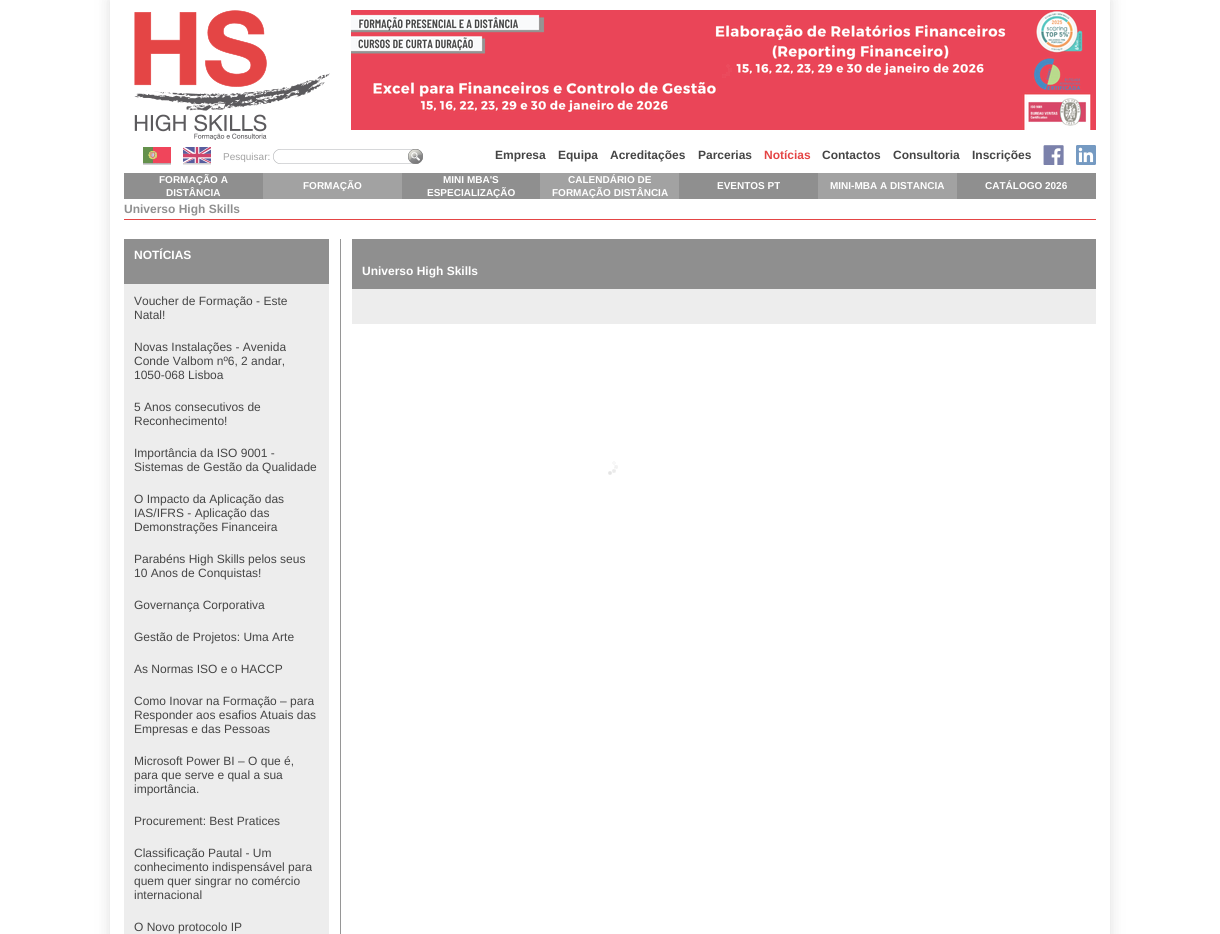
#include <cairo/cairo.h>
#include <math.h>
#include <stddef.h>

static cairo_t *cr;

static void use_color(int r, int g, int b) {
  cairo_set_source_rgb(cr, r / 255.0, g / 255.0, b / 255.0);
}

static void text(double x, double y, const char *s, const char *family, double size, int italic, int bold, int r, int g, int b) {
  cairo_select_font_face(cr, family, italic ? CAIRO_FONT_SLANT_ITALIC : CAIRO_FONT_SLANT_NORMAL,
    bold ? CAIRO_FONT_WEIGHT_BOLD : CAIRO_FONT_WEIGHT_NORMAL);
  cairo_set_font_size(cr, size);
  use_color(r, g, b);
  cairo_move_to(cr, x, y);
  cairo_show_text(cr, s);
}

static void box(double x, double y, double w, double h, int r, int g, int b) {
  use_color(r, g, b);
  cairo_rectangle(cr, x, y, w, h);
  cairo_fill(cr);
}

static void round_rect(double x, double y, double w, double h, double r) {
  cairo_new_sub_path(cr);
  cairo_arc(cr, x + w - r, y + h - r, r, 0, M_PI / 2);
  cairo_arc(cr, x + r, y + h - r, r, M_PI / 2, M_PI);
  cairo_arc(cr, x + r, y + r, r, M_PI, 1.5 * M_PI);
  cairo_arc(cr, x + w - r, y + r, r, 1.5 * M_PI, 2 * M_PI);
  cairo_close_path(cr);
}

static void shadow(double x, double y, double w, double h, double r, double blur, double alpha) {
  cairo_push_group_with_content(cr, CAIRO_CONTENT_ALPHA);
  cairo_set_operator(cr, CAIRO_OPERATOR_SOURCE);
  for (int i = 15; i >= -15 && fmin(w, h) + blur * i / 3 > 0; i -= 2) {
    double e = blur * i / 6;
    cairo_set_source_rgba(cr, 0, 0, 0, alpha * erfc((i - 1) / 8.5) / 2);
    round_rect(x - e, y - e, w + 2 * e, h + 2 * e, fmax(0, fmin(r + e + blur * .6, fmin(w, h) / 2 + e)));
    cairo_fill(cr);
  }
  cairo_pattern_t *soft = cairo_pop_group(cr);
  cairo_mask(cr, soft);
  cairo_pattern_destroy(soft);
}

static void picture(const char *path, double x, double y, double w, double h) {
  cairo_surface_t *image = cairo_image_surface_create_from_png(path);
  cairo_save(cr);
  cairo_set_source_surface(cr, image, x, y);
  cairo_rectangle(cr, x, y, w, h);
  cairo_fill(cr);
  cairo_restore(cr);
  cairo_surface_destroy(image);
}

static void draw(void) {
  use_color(255, 255, 255);
  cairo_paint(cr);
  cairo_save(cr);
  cairo_set_fill_rule(cr, CAIRO_FILL_RULE_EVEN_ODD);
  cairo_new_path(cr);
  cairo_move_to(cr, 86, 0);
  cairo_line_to(cr, 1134, 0);
  cairo_line_to(cr, 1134, 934);
  cairo_line_to(cr, 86, 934);
  cairo_close_path(cr);
  cairo_move_to(cr, 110, 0);
  cairo_line_to(cr, 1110, 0);
  cairo_line_to(cr, 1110, 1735);
  cairo_line_to(cr, 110, 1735);
  cairo_close_path(cr);
  cairo_clip(cr);
  use_color(77, 77, 77);
  shadow(110, 0, 1000, 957, 0, 7.5, 0.2);
  cairo_restore(cr);
  picture("img_01.png", 134, 10, 196, 130);
  picture("img_02.png", 351, 10, 745, 120);
  picture("img_03.png", 722, 64, 10, 14);
  picture("img_04.png", 143, 147, 28, 18);
  picture("img_05.png", 183, 147, 28, 18);
  picture("img_06.png", 273, 149, 150, 15);
  picture("img_07.png", 408, 149, 15, 15);
  picture("img_08.png", 1043, 145, 21, 20);
  picture("img_09.png", 1076, 145, 20, 20);
  box(124, 173, 139, 26, 143, 143, 143);
  box(263, 173, 139, 26, 162, 162, 162);
  box(402, 173, 138, 26, 143, 143, 143);
  box(540, 173, 139, 26, 162, 162, 162);
  box(679, 173, 139, 26, 143, 143, 143);
  box(818, 173, 139, 26, 162, 162, 162);
  box(957, 173, 139, 26, 143, 143, 143);
  box(124, 219, 972, 1, 228, 69, 69);
  box(340, 239, 1, 695, 150, 150, 150);
  box(124, 284, 205, 650, 237, 237, 237);
  box(124, 239, 205, 45, 143, 143, 143);
  box(352, 239, 744, 50, 143, 143, 143);
  box(352, 289, 744, 35, 237, 237, 237);
  picture("img_10.png", 608, 461, 10, 14);
  text(223, 160, "Pesquisar:", "Liberation Sans", 10, 0, 0, 162, 162, 162);
  text(495, 159, "Empresa", "Liberation Sans", 12, 0, 1, 69, 69, 69);
  text(558, 159, "Equipa", "Liberation Sans", 12, 0, 1, 69, 69, 69);
  text(610, 159, "Acreditações", "Liberation Sans", 12, 0, 1, 69, 69, 69);
  text(698, 159, "Parcerias", "Liberation Sans", 12, 0, 1, 69, 69, 69);
  text(764, 159, "Notícias", "Liberation Sans", 12, 0, 1, 228, 69, 69);
  text(822, 159, "Contactos", "Liberation Sans", 12, 0, 1, 69, 69, 69);
  text(893, 159, "Consultoria", "Liberation Sans", 12, 0, 1, 69, 69, 69);
  text(972, 159, "Inscrições", "Liberation Sans", 12, 0, 1, 69, 69, 69);
  text(159, 183, "FORMAÇÃO A", "Liberation Sans", 10, 0, 1, 255, 255, 255);
  text(166, 196, "DISTÂNCIA", "Liberation Sans", 10, 0, 1, 255, 255, 255);
  text(303, 189, "FORMAÇÃO", "Liberation Sans", 10, 0, 1, 255, 255, 255);
  text(443, 183, "MINI MBA'S", "Liberation Sans", 10, 0, 1, 255, 255, 255);
  text(427, 196, "ESPECIALIZAÇÃO", "Liberation Sans", 10, 0, 1, 255, 255, 255);
  text(568, 183, "CALENDÁRIO DE", "Liberation Sans", 10, 0, 1, 255, 255, 255);
  text(552, 196, "FORMAÇÃO DISTÂNCIA", "Liberation Sans", 10, 0, 1, 255, 255, 255);
  text(717, 189, "EVENTOS PT", "Liberation Sans", 10, 0, 1, 255, 255, 255);
  text(830, 189, "MINI-MBA A DISTANCIA", "Liberation Sans", 10, 0, 1, 255, 255, 255);
  text(985, 189, "CATÁLOGO 2026", "Liberation Sans", 10, 0, 1, 255, 255, 255);
  text(124, 213, "Universo High Skills", "Liberation Sans", 12, 0, 1, 143, 143, 143);
  text(134, 259, "NOTÍCIAS", "Liberation Sans", 12, 0, 1, 255, 255, 255);
  text(134, 305, "Voucher de Formação - Este", "Liberation Sans", 12, 0, 0, 69, 69, 69);
  text(134, 319, "Natal!", "Liberation Sans", 12, 0, 0, 69, 69, 69);
  text(134, 351, "Novas Instalações - Avenida", "Liberation Sans", 12, 0, 0, 69, 69, 69);
  text(134, 365, "Conde Valbom nº6, 2 andar,", "Liberation Sans", 12, 0, 0, 69, 69, 69);
  text(134, 379, "1050-068 Lisboa", "Liberation Sans", 12, 0, 0, 69, 69, 69);
  text(134, 411, "5 Anos consecutivos de", "Liberation Sans", 12, 0, 0, 69, 69, 69);
  text(134, 425, "Reconhecimento!", "Liberation Sans", 12, 0, 0, 69, 69, 69);
  text(134, 457, "Importância da ISO 9001 -", "Liberation Sans", 12, 0, 0, 69, 69, 69);
  text(134, 471, "Sistemas de Gestão da Qualidade", "Liberation Sans", 12, 0, 0, 69, 69, 69);
  text(134, 503, "O Impacto da Aplicação das", "Liberation Sans", 12, 0, 0, 69, 69, 69);
  text(134, 517, "IAS/IFRS - Aplicação das", "Liberation Sans", 12, 0, 0, 69, 69, 69);
  text(134, 531, "Demonstrações Financeira", "Liberation Sans", 12, 0, 0, 69, 69, 69);
  text(134, 563, "Parabéns High Skills pelos seus", "Liberation Sans", 12, 0, 0, 69, 69, 69);
  text(134, 577, "10 Anos de Conquistas!", "Liberation Sans", 12, 0, 0, 69, 69, 69);
  text(134, 609, "Governança Corporativa", "Liberation Sans", 12, 0, 0, 69, 69, 69);
  text(134, 641, "Gestão de Projetos: Uma Arte", "Liberation Sans", 12, 0, 0, 69, 69, 69);
  text(134, 673, "As Normas ISO e o HACCP", "Liberation Sans", 12, 0, 0, 69, 69, 69);
  text(134, 705, "Como Inovar na Formação – para", "Liberation Sans", 12, 0, 0, 69, 69, 69);
  text(134, 719, "Responder aos esafios Atuais das", "Liberation Sans", 12, 0, 0, 69, 69, 69);
  text(134, 733, "Empresas e das Pessoas", "Liberation Sans", 12, 0, 0, 69, 69, 69);
  text(134, 765, "Microsoft Power BI – O que é,", "Liberation Sans", 12, 0, 0, 69, 69, 69);
  text(134, 779, "para que serve e qual a sua", "Liberation Sans", 12, 0, 0, 69, 69, 69);
  text(134, 793, "importância.", "Liberation Sans", 12, 0, 0, 69, 69, 69);
  text(134, 825, "Procurement: Best Pratices", "Liberation Sans", 12, 0, 0, 69, 69, 69);
  text(134, 857, "Classificação Pautal - Um", "Liberation Sans", 12, 0, 0, 69, 69, 69);
  text(134, 871, "conhecimento indispensável para", "Liberation Sans", 12, 0, 0, 69, 69, 69);
  text(134, 885, "quem quer singrar no comércio", "Liberation Sans", 12, 0, 0, 69, 69, 69);
  text(134, 899, "internacional", "Liberation Sans", 12, 0, 0, 69, 69, 69);
  text(134, 931, "O Novo protocolo IP", "Liberation Sans", 12, 0, 0, 69, 69, 69);
  text(362, 275, "Universo High Skills", "Liberation Sans", 12, 0, 1, 255, 255, 255);
}

int main(void) {
  cairo_surface_t *surface = cairo_image_surface_create(CAIRO_FORMAT_RGB24, 1220, 934);
  cr = cairo_create(surface);
  cairo_font_options_t *options = cairo_font_options_create();
  cairo_font_options_set_hint_metrics(options, CAIRO_HINT_METRICS_OFF);
  cairo_font_options_set_hint_style(options, CAIRO_HINT_STYLE_NONE);
  cairo_set_font_options(cr, options);
  cairo_set_miter_limit(cr, 4);
  draw();
  cairo_surface_write_to_png(surface, "out.png");
  cairo_font_options_destroy(options);
  cairo_destroy(cr);
  cairo_surface_destroy(surface);
  return 0;
}
